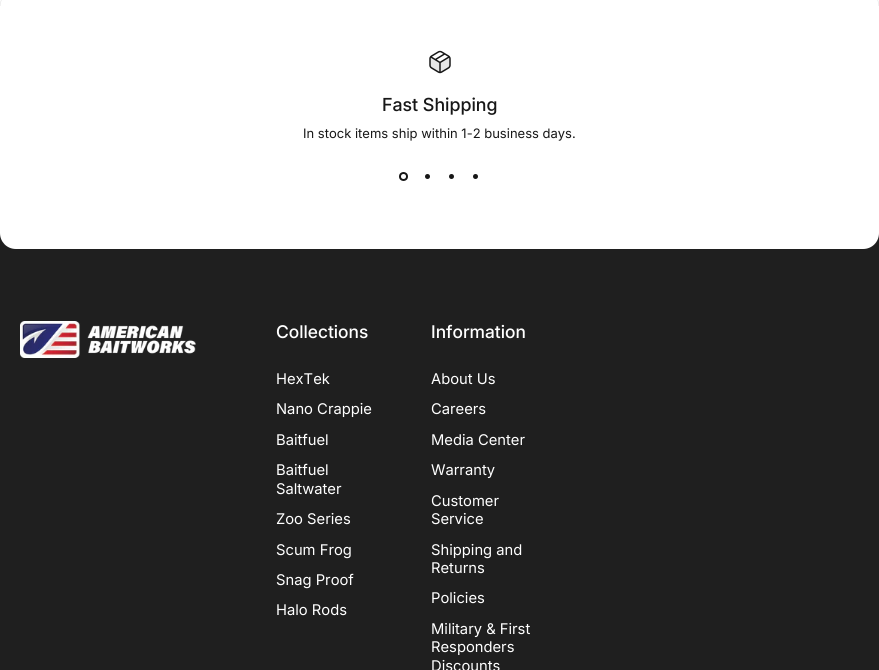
#include <cairo/cairo.h>
#include <math.h>
#include <stddef.h>

static cairo_t *cr;

static void use_color(int r, int g, int b) {
  cairo_set_source_rgb(cr, r / 255.0, g / 255.0, b / 255.0);
}

static void text(double x, double y, const char *s, const char *family, double size, int italic, int bold, int r, int g, int b) {
  cairo_select_font_face(cr, family, italic ? CAIRO_FONT_SLANT_ITALIC : CAIRO_FONT_SLANT_NORMAL,
    bold ? CAIRO_FONT_WEIGHT_BOLD : CAIRO_FONT_WEIGHT_NORMAL);
  cairo_set_font_size(cr, size);
  use_color(r, g, b);
  cairo_move_to(cr, x, y);
  cairo_show_text(cr, s);
}

static void picture(const char *path, double x, double y, double w, double h) {
  cairo_surface_t *image = cairo_image_surface_create_from_png(path);
  cairo_save(cr);
  cairo_set_source_surface(cr, image, x, y);
  cairo_rectangle(cr, x, y, w, h);
  cairo_fill(cr);
  cairo_restore(cr);
  cairo_surface_destroy(image);
}

static void draw(void) {
  use_color(31, 31, 31);
  cairo_paint(cr);
  use_color(255, 255, 255);
  cairo_new_path(cr);
  cairo_move_to(cr, 0, -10);
  cairo_line_to(cr, 879, -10);
  cairo_line_to(cr, 879, 233);
  cairo_curve_to(cr, 879, 242, 872, 249, 863, 249);
  cairo_line_to(cr, 16, 249);
  cairo_curve_to(cr, 7, 249, 0, 242, 0, 233);
  cairo_close_path(cr);
  cairo_fill(cr);
  picture("img_01.png", 0, 0, 2, 6);
  picture("img_02.png", 877, 0, 2, 6);
  picture("img_03.png", 429, 50, 22, 24);
  cairo_arc(cr, 403.5, 176.5, 3.5, 0, 2 * M_PI);
  use_color(23, 23, 23);
  cairo_stroke(cr);
  cairo_arc(cr, 427.5, 176.5, 2.5, 0, 2 * M_PI);
  cairo_fill(cr);
  cairo_arc(cr, 451.5, 176.5, 2.5, 0, 2 * M_PI);
  cairo_fill(cr);
  cairo_arc(cr, 475.5, 176.5, 2.5, 0, 2 * M_PI);
  cairo_fill(cr);
  picture("img_04.png", 20, 321, 176, 37);
  text(382, 111, "Fast Shipping", "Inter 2 Medium", 18, 0, 0, 23, 23, 23);
  text(303, 138, "In stock items ship within 1-2 business days.", "Inter", 13, 0, 0, 23, 23, 23);
  text(276, 338, "Collections", "Inter Medium", 17.5, 0, 0, 255, 255, 255);
  text(276, 384, "HexTek", "Inter", 14.75, 0, 0, 255, 255, 255);
  text(276, 414, "Nano Crappie", "Inter", 14.75, 0, 0, 255, 255, 255);
  text(276, 445, "Baitfuel", "Inter", 14.75, 0, 0, 255, 255, 255);
  text(276, 475, "Baitfuel", "Inter", 14.75, 0, 0, 255, 255, 255);
  text(276, 494, "Saltwater", "Inter", 14.75, 0, 0, 255, 255, 255);
  text(276, 524, "Zoo Series", "Inter", 14.75, 0, 0, 255, 255, 255);
  text(276, 555, "Scum Frog", "Inter", 14.75, 0, 0, 255, 255, 255);
  text(276, 585, "Snag Proof", "Inter", 14.75, 0, 0, 255, 255, 255);
  text(276, 615, "Halo Rods", "Inter", 14.75, 0, 0, 255, 255, 255);
  text(431, 338, "Information", "Inter Medium", 17.5, 0, 0, 255, 255, 255);
  text(431, 384, "About Us", "Inter", 14.75, 0, 0, 255, 255, 255);
  text(431, 414, "Careers", "Inter", 14.75, 0, 0, 255, 255, 255);
  text(431, 445, "Media Center", "Inter", 14.75, 0, 0, 255, 255, 255);
  text(431, 475, "Warranty", "Inter", 14.75, 0, 0, 255, 255, 255);
  text(431, 506, "Customer", "Inter", 14.75, 0, 0, 255, 255, 255);
  text(431, 524, "Service", "Inter", 14.75, 0, 0, 255, 255, 255);
  text(431, 555, "Shipping and", "Inter", 14.75, 0, 0, 255, 255, 255);
  text(431, 573, "Returns", "Inter", 14.75, 0, 0, 255, 255, 255);
  text(431, 603, "Policies", "Inter", 14.75, 0, 0, 255, 255, 255);
  text(431, 634, "Military & First", "Inter", 14.75, 0, 0, 255, 255, 255);
  text(431, 652, "Responders", "Inter", 14.75, 0, 0, 255, 255, 255);
  text(431, 671, "Discounts", "Inter", 14.75, 0, 0, 255, 255, 255);
}

int main(void) {
  cairo_surface_t *surface = cairo_image_surface_create(CAIRO_FORMAT_RGB24, 879, 670);
  cr = cairo_create(surface);
  cairo_font_options_t *options = cairo_font_options_create();
  cairo_font_options_set_hint_metrics(options, CAIRO_HINT_METRICS_OFF);
  cairo_font_options_set_hint_style(options, CAIRO_HINT_STYLE_NONE);
  cairo_set_font_options(cr, options);
  cairo_set_miter_limit(cr, 4);
  draw();
  cairo_surface_write_to_png(surface, "out.png");
  cairo_font_options_destroy(options);
  cairo_destroy(cr);
  cairo_surface_destroy(surface);
  return 0;
}
